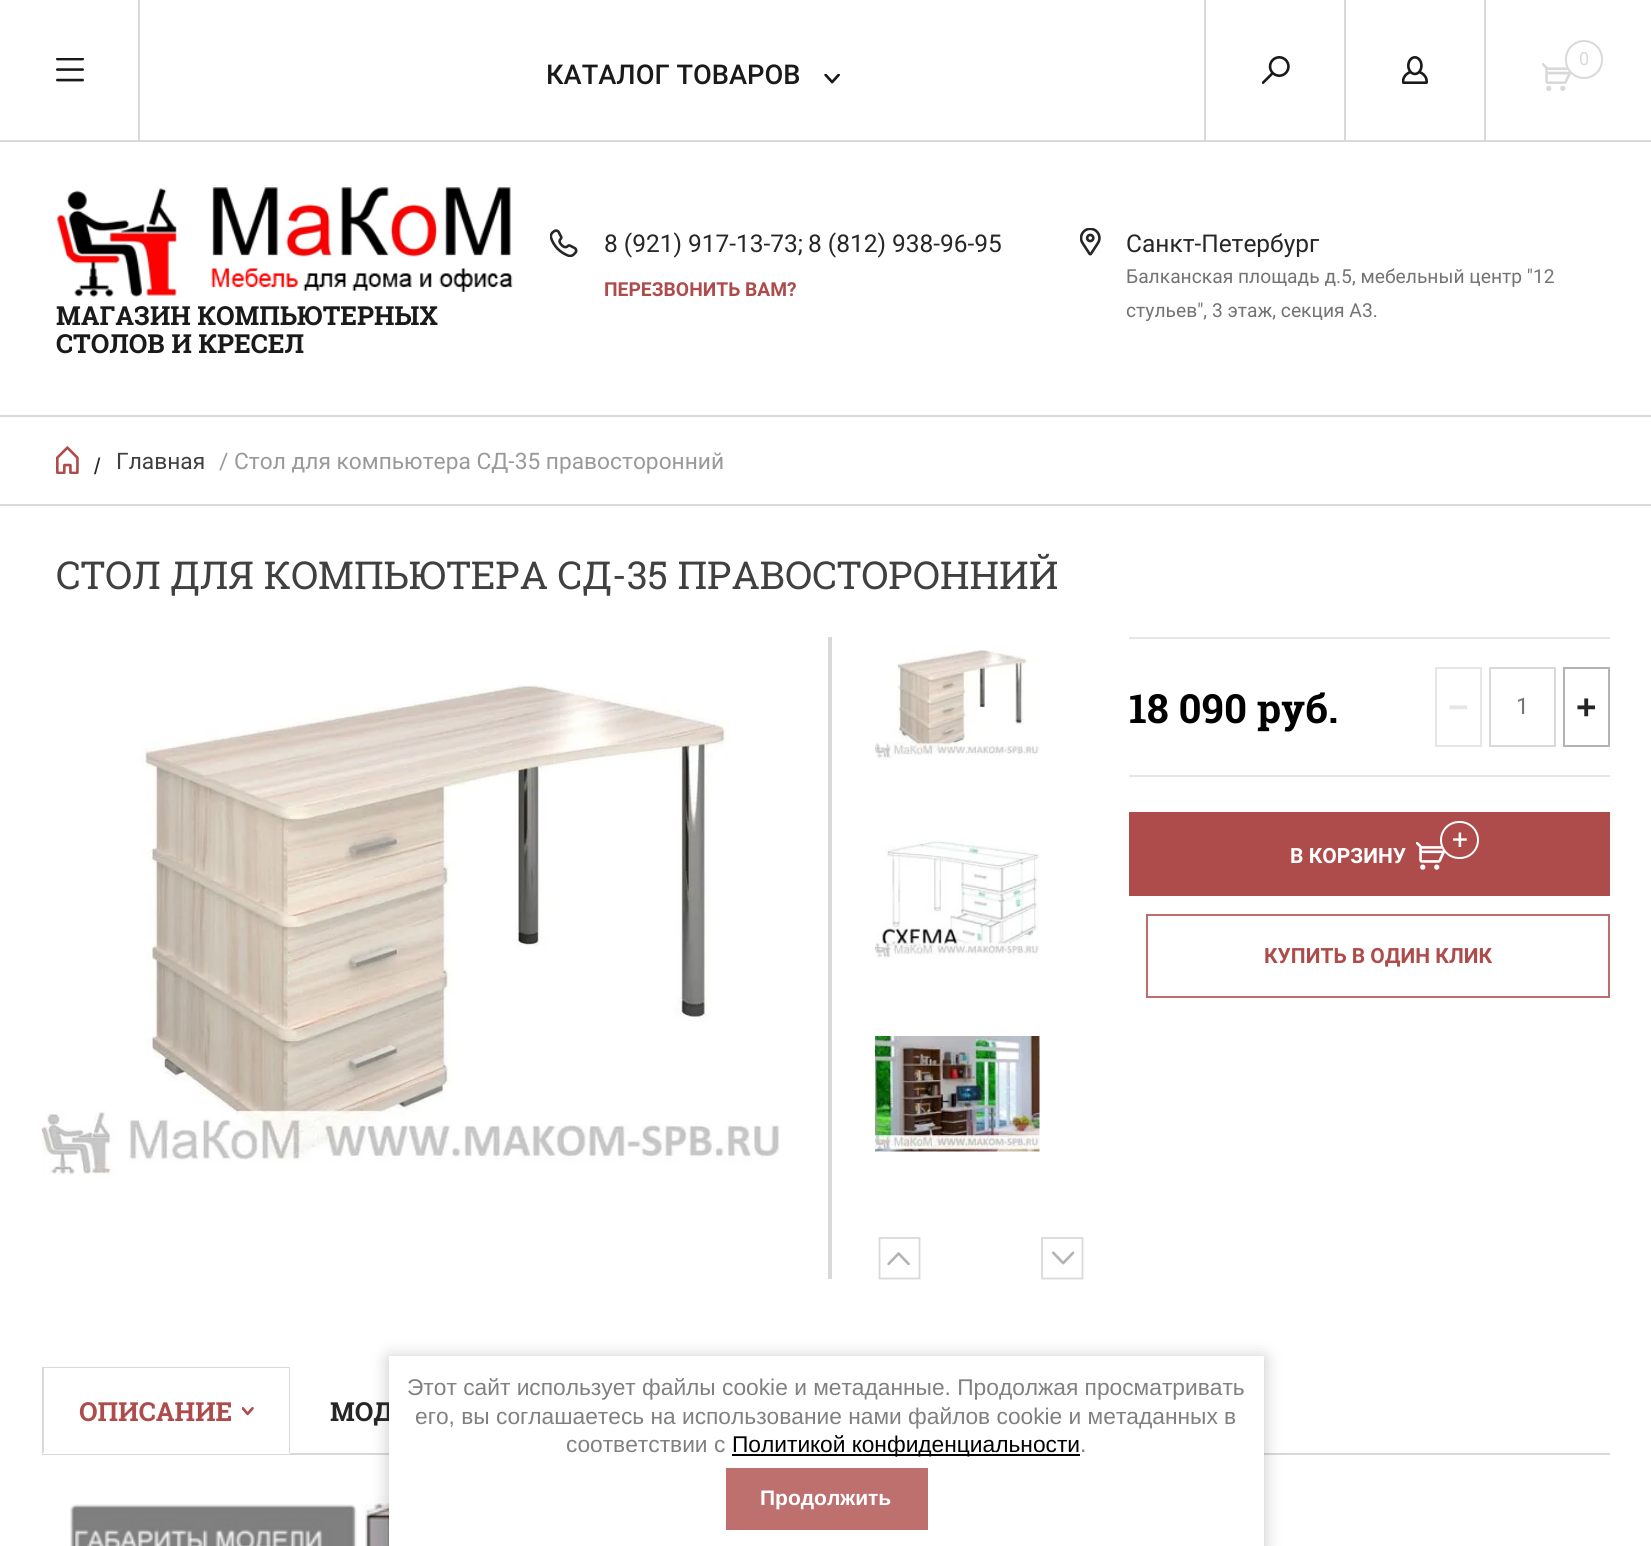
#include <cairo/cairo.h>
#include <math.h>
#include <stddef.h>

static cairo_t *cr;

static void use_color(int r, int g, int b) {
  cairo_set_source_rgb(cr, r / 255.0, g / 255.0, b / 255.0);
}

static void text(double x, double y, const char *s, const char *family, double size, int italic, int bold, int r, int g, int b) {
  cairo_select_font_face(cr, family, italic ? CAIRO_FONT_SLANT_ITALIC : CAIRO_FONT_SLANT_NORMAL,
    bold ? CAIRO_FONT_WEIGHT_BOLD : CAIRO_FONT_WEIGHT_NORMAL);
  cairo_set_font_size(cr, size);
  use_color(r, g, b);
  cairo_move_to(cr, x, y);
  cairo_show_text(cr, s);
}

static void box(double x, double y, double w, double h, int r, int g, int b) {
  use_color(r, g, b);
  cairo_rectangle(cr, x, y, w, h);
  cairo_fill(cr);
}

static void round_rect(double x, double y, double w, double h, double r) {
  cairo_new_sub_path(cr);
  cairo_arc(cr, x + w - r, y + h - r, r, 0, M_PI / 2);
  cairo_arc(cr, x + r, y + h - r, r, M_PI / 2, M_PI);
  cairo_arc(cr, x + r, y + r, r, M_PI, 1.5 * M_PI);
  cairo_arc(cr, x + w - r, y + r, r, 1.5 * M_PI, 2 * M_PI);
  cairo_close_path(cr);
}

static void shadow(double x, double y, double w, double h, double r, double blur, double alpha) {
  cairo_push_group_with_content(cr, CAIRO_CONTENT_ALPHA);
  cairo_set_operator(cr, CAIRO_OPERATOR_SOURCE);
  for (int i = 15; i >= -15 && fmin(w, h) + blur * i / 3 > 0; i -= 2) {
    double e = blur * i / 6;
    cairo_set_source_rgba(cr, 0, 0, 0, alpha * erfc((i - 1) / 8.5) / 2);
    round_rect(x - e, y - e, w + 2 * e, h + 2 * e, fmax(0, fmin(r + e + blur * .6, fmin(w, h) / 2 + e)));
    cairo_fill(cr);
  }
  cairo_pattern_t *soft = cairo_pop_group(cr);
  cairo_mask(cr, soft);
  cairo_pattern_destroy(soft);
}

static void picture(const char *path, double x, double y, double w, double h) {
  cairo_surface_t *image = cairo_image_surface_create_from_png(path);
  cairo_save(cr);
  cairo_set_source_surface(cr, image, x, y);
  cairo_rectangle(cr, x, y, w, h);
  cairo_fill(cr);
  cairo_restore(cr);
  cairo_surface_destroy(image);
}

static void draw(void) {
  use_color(255, 255, 255);
  cairo_paint(cr);
  box(0, 140, 1651, 2, 217, 217, 217);
  picture("img_01.png", 56, 58, 28, 24);
  box(138, 0, 2, 140, 217, 217, 217);
  box(1204, 0, 2, 140, 217, 217, 217);
  picture("img_02.png", 1262, 56, 28, 28);
  picture("img_03.png", 1402, 56, 26, 28);
  box(1344, 0, 2, 140, 217, 217, 217);
  picture("img_04.png", 1542, 63, 29, 28);
  box(1484, 0, 2, 140, 217, 217, 217);
  use_color(255, 255, 255);
  round_rect(1565, 40, 38, 39, 19);
  cairo_fill(cr);
  round_rect(1566, 41, 36, 37, 18);
  cairo_set_source_rgba(cr, 0, 0, 0, 0.15);
  cairo_stroke(cr);
  picture("img_05.png", 824, 74, 16, 10);
  picture("img_06.png", 550, 229, 28, 28);
  picture("img_07.png", 1080, 228, 21, 28);
  picture("img_08.png", 57, 187, 456, 111);
  box(0, 415, 1651, 2, 217, 217, 217);
  box(0, 504, 1651, 2, 217, 217, 217);
  picture("img_09.png", 56, 446, 23, 28);
  picture("img_10.png", 42, 684, 738, 491);
  box(828, 637, 4, 642, 217, 217, 217);
  picture("img_11.png", 875, 650, 165, 110);
  picture("img_12.png", 875, 840, 165, 119);
  picture("img_13.png", 875, 1036, 165, 116);
  picture("img_14.png", 887, 1252, 23, 14);
  cairo_new_path(cr);
  cairo_move_to(cr, 879.5, 1278.5);
  cairo_line_to(cr, 879.5, 1238);
  cairo_line_to(cr, 919.5, 1238);
  cairo_line_to(cr, 919.5, 1278.5);
  cairo_close_path(cr);
  cairo_set_line_width(cr, 1.8);
  cairo_stroke(cr);
  picture("img_15.png", 1051, 1251, 24, 14);
  cairo_new_path(cr);
  cairo_move_to(cr, 1082.5, 1238);
  cairo_line_to(cr, 1082.5, 1278.5);
  cairo_line_to(cr, 1042, 1278.5);
  cairo_line_to(cr, 1042, 1238);
  cairo_close_path(cr);
  cairo_stroke(cr);
  box(1129, 637, 481, 2, 230, 230, 230);
  box(1129, 775, 481, 2, 230, 230, 230);
  cairo_rectangle(cr, 1436, 668, 45, 78);
  cairo_set_line_width(cr, 2);
  cairo_stroke(cr);
  cairo_rectangle(cr, 1490, 668, 65, 78);
  use_color(217, 217, 217);
  cairo_stroke(cr);
  cairo_rectangle(cr, 1564, 668, 45, 78);
  use_color(179, 179, 179);
  cairo_stroke(cr);
  box(1129, 812, 481, 84, 173, 76, 75);
  picture("img_16.png", 1416, 842, 30, 28);
  round_rect(1441, 822, 37, 36, 18);
  cairo_fill_preserve(cr);
  use_color(255, 255, 255);
  cairo_stroke(cr);
  cairo_rectangle(cr, 1147, 915, 462, 82);
  use_color(191, 109, 108);
  cairo_stroke(cr);
  use_color(217, 217, 217);
  cairo_new_path(cr);
  cairo_move_to(cr, 42, 1367);
  cairo_line_to(cr, 290, 1367);
  cairo_line_to(cr, 289, 1368);
  cairo_line_to(cr, 44, 1368);
  cairo_close_path(cr);
  cairo_fill(cr);
  box(42, 1453, 1568, 2, 217, 217, 217);
  cairo_set_source_rgba(cr, 0, 0, 0, 0.15);
  cairo_new_path(cr);
  cairo_move_to(cr, 290, 1367);
  cairo_line_to(cr, 290, 1454);
  cairo_line_to(cr, 289, 1452);
  cairo_line_to(cr, 289, 1368);
  cairo_close_path(cr);
  cairo_fill(cr);
  use_color(255, 255, 255);
  cairo_new_path(cr);
  cairo_move_to(cr, 290, 1454);
  cairo_line_to(cr, 42, 1454);
  cairo_line_to(cr, 44, 1452);
  cairo_line_to(cr, 289, 1452);
  cairo_close_path(cr);
  cairo_fill(cr);
  cairo_set_source_rgba(cr, 0, 0, 0, 0.15);
  cairo_new_path(cr);
  cairo_move_to(cr, 42, 1454);
  cairo_line_to(cr, 42, 1367);
  cairo_line_to(cr, 44, 1368);
  cairo_line_to(cr, 44, 1452);
  cairo_close_path(cr);
  cairo_fill(cr);
  picture("img_17.png", 242, 1407, 12, 9);
  picture("img_18.png", 70, 1496, 319, 50);
  use_color(0, 0, 0);
  shadow(389, 1358, 875, 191, 0, 9, 0.23);
  text(1579, 65, "0", "Roboto", 18, 0, 0, 217, 217, 217);
  text(546, 84, "КАТАЛОГ ТОВАРОВ", "Roboto Medium", 27.25, 0, 0, 26, 26, 26);
  text(604, 252, "8 (921) 917-13-73;", "Roboto", 24.5, 0, 0, 38, 38, 38);
  text(808, 252, "8 (812) 938-96-95", "Roboto", 24.5, 0, 0, 38, 38, 38);
  text(604, 296, "ПЕРЕЗВОНИТЬ ВАМ?", "Roboto", 19.25, 0, 1, 173, 76, 75);
  text(1126, 252, "Санкт-Петербург", "Roboto", 24.5, 0, 0, 38, 38, 38);
  text(1126, 283, "Балканская площадь д.5, мебельный центр \"12", "Roboto", 19.25, 0, 0, 115, 115, 115);
  text(1126, 317, "стульев\", 3 этаж, секция А3.", "Roboto", 19.25, 0, 0, 115, 115, 115);
  text(56, 325, "МАГАЗИН КОМПЬЮТЕРНЫХ", "Roboto Slab", 26.25, 0, 1, 26, 26, 26);
  text(56, 353, "СТОЛОВ И КРЕСЕЛ", "Roboto Slab", 26.25, 0, 1, 26, 26, 26);
  text(94, 474, "/", "Liberation Sans", 22.75, 0, 0, 38, 38, 38);
  text(116, 469, "Главная", "Roboto", 22.75, 0, 0, 64, 64, 64);
  text(219, 469, "/ Стол для компьютера СД-35 правосторонний", "Roboto", 22.75, 0, 0, 153, 153, 153);
  text(56, 589, "СТОЛ ДЛЯ КОМПЬЮТЕРА СД-35 ПРАВОСТОРОННИЙ", "Roboto Slab", 38.5, 0, 0, 64, 64, 64);
  text(1129, 723, "18 090 руб.", "Roboto Slab", 40.25, 0, 1, 0, 0, 0);
  text(1448, 719, "−", "Liberation Sans", 35, 0, 1, 230, 230, 230);
  text(1516, 714, "1", "Roboto", 22.75, 0, 0, 115, 115, 115);
  text(1576, 719, "+", "Liberation Sans", 35, 0, 1, 38, 38, 38);
  text(1452, 849, "+", "Roboto", 28, 0, 0, 255, 255, 255);
  text(1290, 863, "В КОРЗИНУ", "Roboto", 21, 0, 1, 255, 255, 255);
  text(1264, 963, "КУПИТЬ В ОДИН КЛИК", "Roboto", 21, 0, 1, 173, 76, 75);
  text(79, 1421, "ОПИСАНИЕ", "Roboto Slab", 26.25, 0, 1, 173, 76, 75);
  text(330, 1421, "МОД", "Roboto Slab", 26.25, 0, 1, 38, 38, 38);
  box(389, 1356, 875, 190, 255, 255, 255);
  text(407, 1395, "Этот сайт использует файлы cookie и метаданные. Продолжая просматривать", "Liberation Sans", 22.75, 0, 0, 128, 128, 128);
  text(415, 1424, "его, вы соглашаетесь на использование нами файлов cookie и метаданных в", "Liberation Sans", 22.75, 0, 0, 128, 128, 128);
  text(566, 1452, "соответствии с", "Liberation Sans", 22.75, 0, 0, 128, 128, 128);
  box(732, 1454, 348, 2, 0, 0, 0);
  text(732, 1452, "Политикой конфиденциальности", "Liberation Sans", 22.75, 0, 0, 0, 0, 0);
  text(1080, 1452, ".", "Liberation Sans", 22.75, 0, 0, 128, 128, 128);
  box(726, 1468, 202, 62, 190, 112, 111);
  text(760, 1505, "Продолжить", "Liberation Sans", 21, 0, 1, 255, 255, 255);
}

int main(void) {
  cairo_surface_t *surface = cairo_image_surface_create(CAIRO_FORMAT_RGB24, 1651, 1546);
  cr = cairo_create(surface);
  cairo_font_options_t *options = cairo_font_options_create();
  cairo_font_options_set_hint_metrics(options, CAIRO_HINT_METRICS_OFF);
  cairo_font_options_set_hint_style(options, CAIRO_HINT_STYLE_NONE);
  cairo_set_font_options(cr, options);
  cairo_set_miter_limit(cr, 4);
  draw();
  cairo_surface_write_to_png(surface, "out.png");
  cairo_font_options_destroy(options);
  cairo_destroy(cr);
  cairo_surface_destroy(surface);
  return 0;
}
